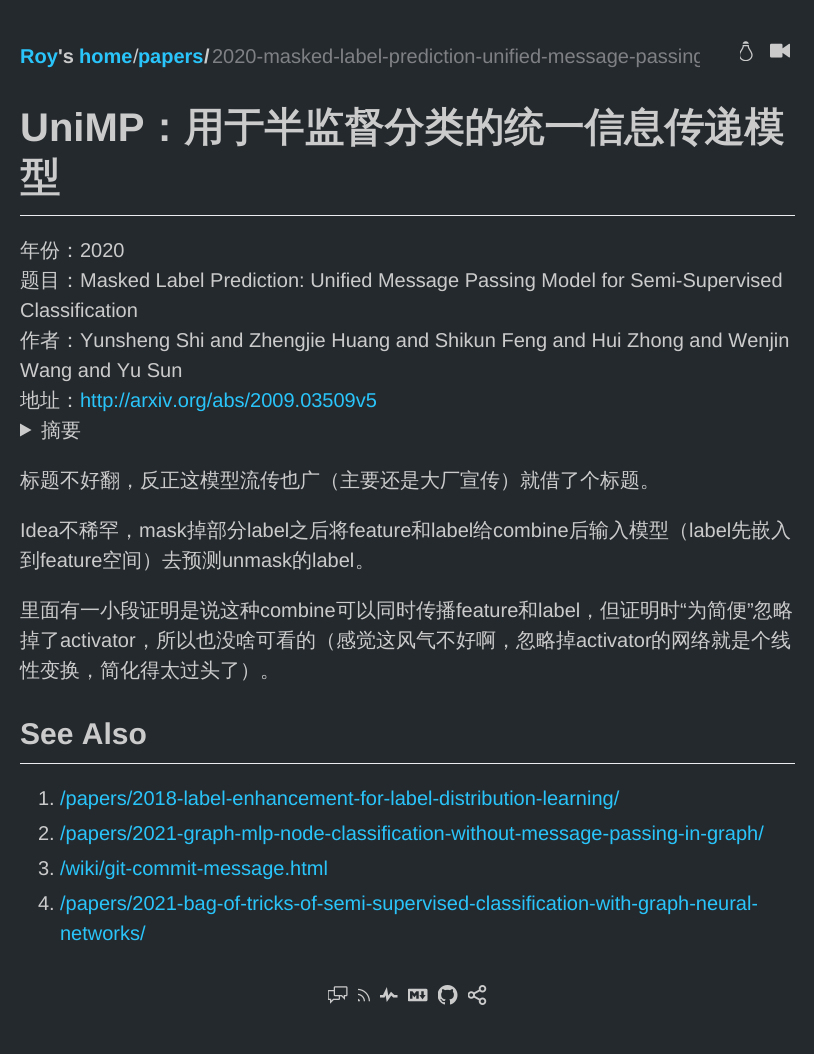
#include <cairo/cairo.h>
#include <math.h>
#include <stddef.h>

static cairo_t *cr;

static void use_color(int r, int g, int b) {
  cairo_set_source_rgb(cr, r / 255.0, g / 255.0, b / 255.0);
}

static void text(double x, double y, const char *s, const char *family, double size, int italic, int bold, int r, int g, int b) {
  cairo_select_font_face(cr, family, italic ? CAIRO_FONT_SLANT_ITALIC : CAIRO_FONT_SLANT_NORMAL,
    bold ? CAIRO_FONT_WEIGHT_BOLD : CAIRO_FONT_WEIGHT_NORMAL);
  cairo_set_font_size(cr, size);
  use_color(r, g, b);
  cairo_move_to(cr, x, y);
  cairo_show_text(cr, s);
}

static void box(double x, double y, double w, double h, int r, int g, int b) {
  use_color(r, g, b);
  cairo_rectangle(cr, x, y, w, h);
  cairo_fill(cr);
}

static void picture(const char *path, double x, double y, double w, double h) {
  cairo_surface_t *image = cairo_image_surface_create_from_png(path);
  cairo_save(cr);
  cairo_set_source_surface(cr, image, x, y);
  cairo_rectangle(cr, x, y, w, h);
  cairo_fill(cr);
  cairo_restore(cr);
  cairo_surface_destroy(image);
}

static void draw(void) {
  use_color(36, 41, 46);
  cairo_paint(cr);
  picture("img_01.png", 740, 41, 13, 20);
  picture("img_02.png", 770, 43, 20, 15);
  box(20, 215, 775, 1, 234, 236, 239);
  use_color(203, 203, 203);
  cairo_new_path(cr);
  cairo_move_to(cr, 20, 423.5);
  cairo_line_to(cr, 31.5, 430);
  cairo_line_to(cr, 20, 436.5);
  cairo_close_path(cr);
  cairo_fill(cr);
  box(20, 763, 775, 1, 234, 236, 239);
  picture("img_03.png", 328, 986, 20, 18);
  picture("img_04.png", 358, 988, 12, 14);
  picture("img_05.png", 380, 987, 18, 15);
  picture("img_06.png", 408, 988, 20, 14);
  picture("img_07.png", 438, 985, 20, 20);
  picture("img_08.png", 468, 985, 19, 20);
  text(20, 63, "Roy", "Liberation Sans", 20, 0, 1, 41, 197, 250);
  text(58, 63, "'s", "Liberation Sans", 20, 0, 1, 203, 203, 203);
  text(79, 63, "home papers", "Liberation Sans", 20, 0, 1, 41, 197, 250);
  text(133, 63, "/", "Liberation Sans", 20, 0, 0, 203, 203, 203);
  text(204, 63, "/", "Liberation Sans", 20, 0, 1, 203, 203, 203);
  cairo_save(cr);
  cairo_rectangle(cr, 211, 45, 489, 23);
  cairo_clip(cr);
  text(212, 63, "2020-masked-label-prediction-unified-message-passing", "Liberation Sans", 20, 0, 0, 126, 128, 131);
  cairo_restore(cr);
  text(20, 141, "UniMP", "Liberation Sans", 40, 0, 1, 203, 203, 203);
  text(144, 141, "：用于半监督分类的统一信息传递模", "WenQuanYi Zen Hei", 40, 0, 1, 203, 203, 203);
  text(20, 191, "型", "WenQuanYi Zen Hei", 40, 0, 1, 203, 203, 203);
  text(20, 257, "年份：", "WenQuanYi Zen Hei Medium", 20, 0, 0, 203, 203, 203);
  text(80, 257, "2020", "Liberation Sans", 20, 0, 0, 203, 203, 203);
  text(20, 287, "题目：", "WenQuanYi Zen Hei Medium", 20, 0, 0, 203, 203, 203);
  text(80, 287, "Masked Label Prediction: Unified Message Passing Model for Semi-Supervised", "Liberation Sans", 20, 0, 0, 203, 203, 203);
  text(20, 317, "Classification", "Liberation Sans", 20, 0, 0, 203, 203, 203);
  text(20, 347, "作者：", "WenQuanYi Zen Hei Medium", 20, 0, 0, 203, 203, 203);
  text(80, 347, "Yunsheng Shi and Zhengjie Huang and Shikun Feng and Hui Zhong and Wenjin", "Liberation Sans", 20, 0, 0, 203, 203, 203);
  text(20, 377, "Wang and Yu Sun", "Liberation Sans", 20, 0, 0, 203, 203, 203);
  text(20, 407, "地址：", "WenQuanYi Zen Hei Medium", 20, 0, 0, 203, 203, 203);
  text(80, 407, "http://arxiv.org/abs/2009.03509v5", "Liberation Sans", 20, 0, 0, 41, 197, 250);
  text(41, 437, "摘要", "WenQuanYi Zen Hei Medium", 20, 0, 0, 203, 203, 203);
  text(20, 487, "标题不好翻，反正这模型流传也广（主要还是大厂宣传）就借了个标题。", "WenQuanYi Zen Hei Medium", 20, 0, 0, 203, 203, 203);
  text(20, 537, "Idea", "Liberation Sans", 20, 0, 0, 203, 203, 203);
  text(59, 537, "不稀罕，", "WenQuanYi Zen Hei Medium", 20, 0, 0, 203, 203, 203);
  text(139, 537, "mask", "Liberation Sans", 20, 0, 0, 203, 203, 203);
  text(187, 537, "掉部分", "WenQuanYi Zen Hei Medium", 20, 0, 0, 203, 203, 203);
  text(247, 537, "label", "Liberation Sans", 20, 0, 0, 203, 203, 203);
  text(289, 537, "之后将", "WenQuanYi Zen Hei Medium", 20, 0, 0, 203, 203, 203);
  text(349, 537, "feature", "Liberation Sans", 20, 0, 0, 203, 203, 203);
  text(411, 537, "和", "WenQuanYi Zen Hei Medium", 20, 0, 0, 203, 203, 203);
  text(431, 537, "label", "Liberation Sans", 20, 0, 0, 203, 203, 203);
  text(473, 537, "给", "WenQuanYi Zen Hei Medium", 20, 0, 0, 203, 203, 203);
  text(493, 537, "combine", "Liberation Sans", 20, 0, 0, 203, 203, 203);
  text(569, 537, "后输入模型（", "WenQuanYi Zen Hei Medium", 20, 0, 0, 203, 203, 203);
  text(689, 537, "label", "Liberation Sans", 20, 0, 0, 203, 203, 203);
  text(731, 537, "先嵌入", "WenQuanYi Zen Hei Medium", 20, 0, 0, 203, 203, 203);
  text(20, 567, "到", "WenQuanYi Zen Hei Medium", 20, 0, 0, 203, 203, 203);
  text(40, 567, "feature", "Liberation Sans", 20, 0, 0, 203, 203, 203);
  text(102, 567, "空间）去预测", "WenQuanYi Zen Hei Medium", 20, 0, 0, 203, 203, 203);
  text(222, 567, "unmask", "Liberation Sans", 20, 0, 0, 203, 203, 203);
  text(292, 567, "的", "WenQuanYi Zen Hei Medium", 20, 0, 0, 203, 203, 203);
  text(312, 567, "label", "Liberation Sans", 20, 0, 0, 203, 203, 203);
  text(355, 567, "。", "WenQuanYi Zen Hei Medium", 20, 0, 0, 203, 203, 203);
  text(20, 617, "里面有一小段证明是说这种", "WenQuanYi Zen Hei Medium", 20, 0, 0, 203, 203, 203);
  text(260, 617, "combine", "Liberation Sans", 20, 0, 0, 203, 203, 203);
  text(336, 617, "可以同时传播", "WenQuanYi Zen Hei Medium", 20, 0, 0, 203, 203, 203);
  text(456, 617, "feature", "Liberation Sans", 20, 0, 0, 203, 203, 203);
  text(518, 617, "和", "WenQuanYi Zen Hei Medium", 20, 0, 0, 203, 203, 203);
  text(538, 617, "label", "Liberation Sans", 20, 0, 0, 203, 203, 203);
  text(580, 617, "，但证明时", "WenQuanYi Zen Hei Medium", 20, 0, 0, 203, 203, 203);
  text(680, 617, "“", "Liberation Sans", 20, 0, 0, 203, 203, 203);
  text(687, 617, "为简便", "WenQuanYi Zen Hei Medium", 20, 0, 0, 203, 203, 203);
  text(747, 617, "”", "Liberation Sans", 20, 0, 0, 203, 203, 203);
  text(753, 617, "忽略", "WenQuanYi Zen Hei Medium", 20, 0, 0, 203, 203, 203);
  text(20, 647, "掉了", "WenQuanYi Zen Hei Medium", 20, 0, 0, 203, 203, 203);
  text(60, 647, "activator", "Liberation Sans", 20, 0, 0, 203, 203, 203);
  text(136, 647, "，所以也没啥可看的（感觉这风气不好啊，忽略掉", "WenQuanYi Zen Hei Medium", 20, 0, 0, 203, 203, 203);
  text(576, 647, "activator", "Liberation Sans", 20, 0, 0, 203, 203, 203);
  text(651, 647, "的网络就是个线", "WenQuanYi Zen Hei Medium", 20, 0, 0, 203, 203, 203);
  text(20, 677, "性变换，简化得太过头了）。", "WenQuanYi Zen Hei Medium", 20, 0, 0, 203, 203, 203);
  text(20, 744, "See Also", "Liberation Sans", 30, 0, 1, 203, 203, 203);
  text(38, 805, "1.", "Liberation Sans", 20, 0, 0, 203, 203, 203);
  text(60, 805, "/papers/2018-label-enhancement-for-label-distribution-learning/", "Liberation Sans", 20, 0, 0, 41, 197, 250);
  text(38, 840, "2.", "Liberation Sans", 20, 0, 0, 203, 203, 203);
  text(60, 840, "/papers/2021-graph-mlp-node-classification-without-message-passing-in-graph/", "Liberation Sans", 20, 0, 0, 41, 197, 250);
  text(38, 875, "3.", "Liberation Sans", 20, 0, 0, 203, 203, 203);
  text(60, 875, "/wiki/git-commit-message.html", "Liberation Sans", 20, 0, 0, 41, 197, 250);
  text(38, 910, "4.", "Liberation Sans", 20, 0, 0, 203, 203, 203);
  text(60, 910, "/papers/2021-bag-of-tricks-of-semi-supervised-classification-with-graph-neural-", "Liberation Sans", 20, 0, 0, 41, 197, 250);
  text(60, 940, "networks/", "Liberation Sans", 20, 0, 0, 41, 197, 250);
}

int main(void) {
  cairo_surface_t *surface = cairo_image_surface_create(CAIRO_FORMAT_RGB24, 814, 1054);
  cr = cairo_create(surface);
  cairo_font_options_t *options = cairo_font_options_create();
  cairo_font_options_set_hint_metrics(options, CAIRO_HINT_METRICS_OFF);
  cairo_font_options_set_hint_style(options, CAIRO_HINT_STYLE_NONE);
  cairo_set_font_options(cr, options);
  cairo_set_miter_limit(cr, 4);
  draw();
  cairo_surface_write_to_png(surface, "out.png");
  cairo_font_options_destroy(options);
  cairo_destroy(cr);
  cairo_surface_destroy(surface);
  return 0;
}
